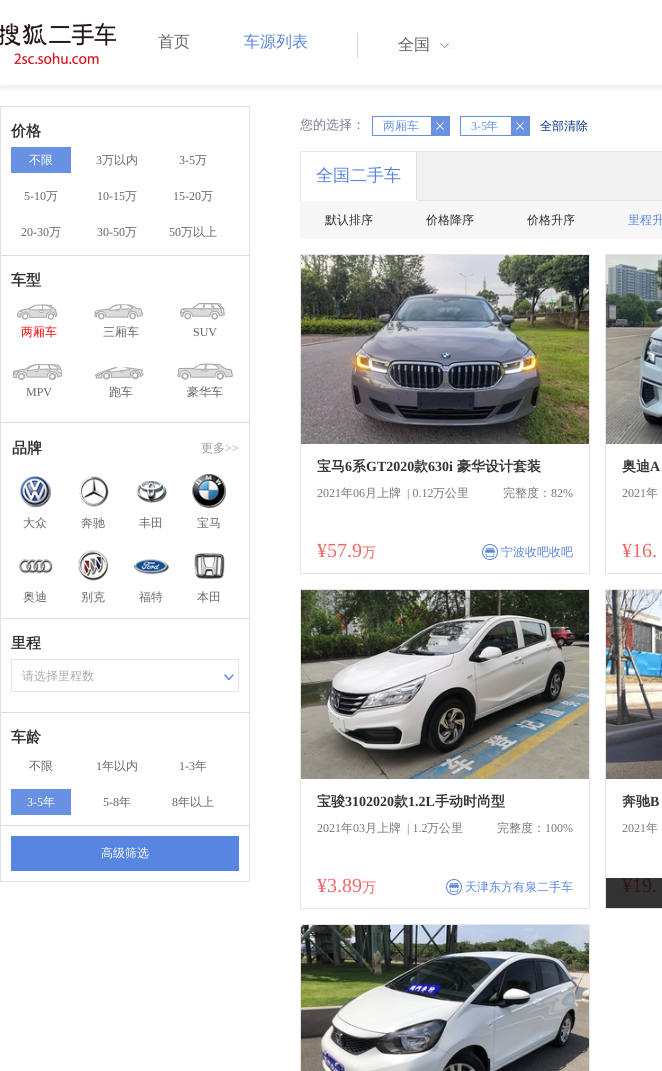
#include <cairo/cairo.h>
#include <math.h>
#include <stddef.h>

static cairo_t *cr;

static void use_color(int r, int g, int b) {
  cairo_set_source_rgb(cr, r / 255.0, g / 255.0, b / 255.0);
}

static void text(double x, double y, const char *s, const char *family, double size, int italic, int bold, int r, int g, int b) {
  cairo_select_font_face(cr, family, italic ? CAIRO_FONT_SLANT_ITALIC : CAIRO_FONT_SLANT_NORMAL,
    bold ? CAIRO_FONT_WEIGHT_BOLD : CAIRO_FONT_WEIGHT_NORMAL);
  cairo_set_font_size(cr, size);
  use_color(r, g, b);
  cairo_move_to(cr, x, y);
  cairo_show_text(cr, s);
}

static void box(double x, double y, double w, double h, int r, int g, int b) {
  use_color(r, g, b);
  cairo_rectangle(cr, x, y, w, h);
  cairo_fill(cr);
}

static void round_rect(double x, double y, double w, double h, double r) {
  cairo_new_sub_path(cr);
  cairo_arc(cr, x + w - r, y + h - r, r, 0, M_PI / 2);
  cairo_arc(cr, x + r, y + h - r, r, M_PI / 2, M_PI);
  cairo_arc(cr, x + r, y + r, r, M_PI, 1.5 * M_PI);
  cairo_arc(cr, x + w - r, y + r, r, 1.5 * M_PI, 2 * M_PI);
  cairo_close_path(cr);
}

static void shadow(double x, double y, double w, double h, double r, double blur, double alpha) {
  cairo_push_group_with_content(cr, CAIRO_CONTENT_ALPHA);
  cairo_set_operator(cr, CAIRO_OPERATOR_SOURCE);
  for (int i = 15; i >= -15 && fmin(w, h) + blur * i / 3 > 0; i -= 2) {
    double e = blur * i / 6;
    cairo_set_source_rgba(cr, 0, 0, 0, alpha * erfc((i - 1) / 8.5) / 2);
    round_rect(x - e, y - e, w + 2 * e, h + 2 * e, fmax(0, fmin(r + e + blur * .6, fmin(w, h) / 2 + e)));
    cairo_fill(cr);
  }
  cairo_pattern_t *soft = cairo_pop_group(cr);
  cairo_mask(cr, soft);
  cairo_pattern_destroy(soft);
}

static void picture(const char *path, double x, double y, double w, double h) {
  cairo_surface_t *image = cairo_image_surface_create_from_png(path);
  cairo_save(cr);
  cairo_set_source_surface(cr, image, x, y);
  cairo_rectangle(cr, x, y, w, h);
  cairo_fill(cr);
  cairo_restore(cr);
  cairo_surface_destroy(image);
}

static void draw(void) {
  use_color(255, 255, 255);
  cairo_paint(cr);
  box(606, 878, 56, 30, 51, 51, 51);
  cairo_save(cr);
  cairo_rectangle(cr, 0, 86, 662, 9);
  cairo_clip(cr);
  use_color(238, 238, 238);
  shadow(0, 3, 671, 86, 0, 3, 1);
  cairo_restore(cr);
  box(0, 85, 662, 1, 242, 242, 242);
  picture("img_01.png", 0, 23, 116, 41);
  box(357, 33, 1, 25, 214, 214, 214);
  picture("img_02.png", 440, 43, 16, 6);
  cairo_rectangle(cr, 0.5, 106.5, 249, 775);
  use_color(225, 225, 227);
  cairo_set_line_width(cr, 1);
  cairo_stroke(cr);
  box(1, 255, 248, 1, 221, 221, 221);
  box(11, 147, 60, 26, 104, 145, 225);
  box(1, 422, 248, 1, 221, 221, 221);
  picture("img_03.png", 17, 304, 41, 16);
  picture("img_04.png", 94, 304, 49, 16);
  picture("img_05.png", 180, 302, 45, 18);
  picture("img_06.png", 12, 364, 50, 16);
  picture("img_07.png", 95, 366, 50, 14);
  picture("img_08.png", 177, 363, 56, 17);
  box(1, 618, 248, 1, 224, 224, 224);
  box(1, 618, 1, 1, 255, 255, 255);
  picture("img_09.png", 19, 475, 33, 33);
  picture("img_10.png", 79, 476, 30, 31);
  picture("img_11.png", 136, 481, 32, 22);
  picture("img_12.png", 192, 474, 35, 35);
  picture("img_13.png", 19, 559, 34, 15);
  picture("img_14.png", 78, 550, 31, 31);
  picture("img_15.png", 134, 559, 35, 16);
  picture("img_16.png", 194, 553, 31, 27);
  box(1, 712, 248, 1, 221, 221, 221);
  cairo_rectangle(cr, 11.5, 659.5, 227, 32);
  use_color(229, 229, 229);
  cairo_stroke(cr);
  picture("img_17.png", 224, 674, 10, 7);
  box(1, 825, 248, 1, 221, 221, 221);
  box(11, 789, 60, 26, 104, 145, 225);
  box(11, 836, 228, 35, 88, 133, 224);
  cairo_rectangle(cr, 372.5, 116.5, 77, 19);
  use_color(104, 145, 226);
  cairo_stroke(cr);
  box(431, 117, 18, 18, 104, 145, 226);
  picture("img_18.png", 436, 122, 8, 8);
  cairo_rectangle(cr, 460.5, 116.5, 69, 19);
  cairo_stroke(cr);
  box(511, 117, 18, 18, 104, 145, 226);
  picture("img_18.png", 516, 122, 8, 8);
  box(417, 152, 245, 48, 242, 242, 243);
  cairo_rectangle(cr, 300.5, 151.5, 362, 49);
  use_color(230, 230, 230);
  cairo_stroke(cr);
  box(416, 152, 1, 49, 225, 225, 227);
  box(301, 200, 116, 1, 255, 255, 255);
  box(300, 201, 362, 38, 247, 247, 247);
  cairo_rectangle(cr, 300.5, 254.5, 289, 319);
  use_color(230, 230, 230);
  cairo_stroke(cr);
  picture("img_19.png", 301, 255, 288, 189);
  picture("img_20.png", 482, 544, 16, 16);
  cairo_rectangle(cr, 605.5, 254.5, 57, 319);
  cairo_stroke(cr);
  picture("img_21.png", 606, 255, 56, 189);
  cairo_rectangle(cr, 300.5, 589.5, 289, 319);
  cairo_stroke(cr);
  picture("img_22.png", 301, 590, 288, 189);
  picture("img_20.png", 446, 879, 16, 16);
  cairo_rectangle(cr, 605.5, 589.5, 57, 319);
  cairo_stroke(cr);
  picture("img_23.png", 606, 590, 56, 189);
  cairo_rectangle(cr, 300.5, 924.5, 289, 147);
  cairo_stroke(cr);
  picture("img_24.png", 301, 925, 288, 146);
  text(158, 47, "首页", "WenQuanYi Zen Hei Medium", 16, 0, 0, 102, 102, 102);
  text(244, 47, "车源列表", "WenQuanYi Zen Hei Medium", 16, 0, 0, 88, 133, 223);
  text(398, 50, "全国", "WenQuanYi Zen Hei Medium", 16, 0, 0, 102, 102, 102);
  text(11, 136, "价格", "WenQuanYi Zen Hei", 15, 0, 1, 51, 51, 51);
  text(29, 164, "不限", "WenQuanYi Zen Hei Medium", 12, 0, 0, 255, 255, 255);
  text(96, 164, "3", "Liberation Serif", 12, 0, 0, 102, 102, 102);
  text(102, 164, "万以内", "WenQuanYi Zen Hei Medium", 12, 0, 0, 102, 102, 102);
  text(179, 164, "3-5", "Liberation Serif", 12, 0, 0, 102, 102, 102);
  text(195, 164, "万", "WenQuanYi Zen Hei Medium", 12, 0, 0, 102, 102, 102);
  text(24, 200, "5-10", "Liberation Serif", 12, 0, 0, 102, 102, 102);
  text(46, 200, "万", "WenQuanYi Zen Hei Medium", 12, 0, 0, 102, 102, 102);
  text(97, 200, "10-15", "Liberation Serif", 12, 0, 0, 102, 102, 102);
  text(125, 200, "万", "WenQuanYi Zen Hei Medium", 12, 0, 0, 102, 102, 102);
  text(173, 200, "15-20", "Liberation Serif", 12, 0, 0, 102, 102, 102);
  text(201, 200, "万", "WenQuanYi Zen Hei Medium", 12, 0, 0, 102, 102, 102);
  text(21, 236, "20-30", "Liberation Serif", 12, 0, 0, 102, 102, 102);
  text(49, 236, "万", "WenQuanYi Zen Hei Medium", 12, 0, 0, 102, 102, 102);
  text(97, 236, "30-50", "Liberation Serif", 12, 0, 0, 102, 102, 102);
  text(125, 236, "万", "WenQuanYi Zen Hei Medium", 12, 0, 0, 102, 102, 102);
  text(169, 236, "50", "Liberation Serif", 12, 0, 0, 102, 102, 102);
  text(181, 236, "万以上", "WenQuanYi Zen Hei Medium", 12, 0, 0, 102, 102, 102);
  text(11, 285, "车型", "WenQuanYi Zen Hei", 15, 0, 1, 51, 51, 51);
  text(21, 336, "两厢车", "WenQuanYi Zen Hei Medium", 12, 0, 0, 255, 0, 0);
  text(103, 336, "三厢车", "WenQuanYi Zen Hei Medium", 12, 0, 0, 102, 102, 102);
  text(193, 336, "SUV", "Liberation Serif", 12, 0, 0, 102, 102, 102);
  text(26, 396, "MPV", "Liberation Serif", 12, 0, 0, 102, 102, 102);
  text(109, 396, "跑车", "WenQuanYi Zen Hei Medium", 12, 0, 0, 102, 102, 102);
  text(187, 396, "豪华车", "WenQuanYi Zen Hei Medium", 12, 0, 0, 102, 102, 102);
  text(12, 453, "品牌", "WenQuanYi Zen Hei", 15, 0, 1, 51, 51, 51);
  text(201, 452, "更多", "WenQuanYi Zen Hei Medium", 12, 0, 0, 153, 153, 153);
  text(225, 452, ">>", "Liberation Serif", 12, 0, 0, 153, 153, 153);
  text(23, 527, "大众", "WenQuanYi Zen Hei Medium", 12, 0, 0, 102, 102, 102);
  text(81, 527, "奔驰", "WenQuanYi Zen Hei Medium", 12, 0, 0, 102, 102, 102);
  text(139, 527, "丰田", "WenQuanYi Zen Hei Medium", 12, 0, 0, 102, 102, 102);
  text(197, 527, "宝马", "WenQuanYi Zen Hei Medium", 12, 0, 0, 102, 102, 102);
  text(23, 601, "奥迪", "WenQuanYi Zen Hei Medium", 12, 0, 0, 102, 102, 102);
  text(81, 601, "别克", "WenQuanYi Zen Hei Medium", 12, 0, 0, 102, 102, 102);
  text(139, 601, "福特", "WenQuanYi Zen Hei Medium", 12, 0, 0, 102, 102, 102);
  text(197, 601, "本田", "WenQuanYi Zen Hei Medium", 12, 0, 0, 102, 102, 102);
  text(11, 648, "里程", "WenQuanYi Zen Hei", 15, 0, 1, 51, 51, 51);
  text(22, 680, "请选择里程数", "WenQuanYi Zen Hei Medium", 12, 0, 0, 170, 170, 170);
  text(11, 742, "车龄", "WenQuanYi Zen Hei", 15, 0, 1, 51, 51, 51);
  text(29, 770, "不限", "WenQuanYi Zen Hei Medium", 12, 0, 0, 102, 102, 102);
  text(96, 770, "1", "Liberation Serif", 12, 0, 0, 102, 102, 102);
  text(102, 770, "年以内", "WenQuanYi Zen Hei Medium", 12, 0, 0, 102, 102, 102);
  text(179, 770, "1-3", "Liberation Serif", 12, 0, 0, 102, 102, 102);
  text(195, 770, "年", "WenQuanYi Zen Hei Medium", 12, 0, 0, 102, 102, 102);
  text(27, 806, "3-5", "Liberation Serif", 12, 0, 0, 255, 255, 255);
  text(43, 806, "年", "WenQuanYi Zen Hei Medium", 12, 0, 0, 255, 255, 255);
  text(103, 806, "5-8", "Liberation Serif", 12, 0, 0, 102, 102, 102);
  text(119, 806, "年", "WenQuanYi Zen Hei Medium", 12, 0, 0, 102, 102, 102);
  text(172, 806, "8", "Liberation Serif", 12, 0, 0, 102, 102, 102);
  text(178, 806, "年以上", "WenQuanYi Zen Hei Medium", 12, 0, 0, 102, 102, 102);
  text(101, 857, "高级筛选", "WenQuanYi Zen Hei Medium", 12, 0, 0, 255, 255, 255);
  text(300, 129, "您的选择：", "WenQuanYi Zen Hei Medium", 13, 0, 0, 123, 123, 143);
  text(383, 130, "两厢车", "WenQuanYi Zen Hei Medium", 12, 0, 0, 104, 145, 226);
  text(471, 130, "3-5", "Liberation Serif", 12, 0, 0, 104, 145, 226);
  text(486, 130, "年", "WenQuanYi Zen Hei Medium", 12, 0, 0, 104, 145, 226);
  text(540, 130, "全部清除", "WenQuanYi Zen Hei Medium", 12, 0, 0, 4, 45, 135);
  text(316, 181, "全国二手车", "WenQuanYi Zen Hei Medium", 17, 0, 0, 88, 133, 223);
  text(325, 224, "默认排序", "WenQuanYi Zen Hei Medium", 12, 0, 0, 45, 45, 45);
  text(426, 224, "价格降序", "WenQuanYi Zen Hei Medium", 12, 0, 0, 45, 45, 45);
  text(527, 224, "价格升序", "WenQuanYi Zen Hei Medium", 12, 0, 0, 45, 45, 45);
  text(628, 224, "里程升", "WenQuanYi Zen Hei Medium", 12, 0, 0, 88, 133, 223);
  text(317, 471, "宝马", "WenQuanYi Zen Hei", 14, 0, 1, 51, 51, 51);
  text(345, 471, "6", "Liberation Serif", 14, 0, 1, 51, 51, 51);
  text(352, 471, "系", "WenQuanYi Zen Hei", 14, 0, 1, 51, 51, 51);
  text(366, 471, "GT2020", "Liberation Serif", 14, 0, 1, 51, 51, 51);
  text(414, 471, "款", "WenQuanYi Zen Hei", 14, 0, 1, 51, 51, 51);
  text(428, 471, "630i", "Liberation Serif", 14, 0, 1, 51, 51, 51);
  text(457, 471, "豪华设计套装", "WenQuanYi Zen Hei", 14, 0, 1, 51, 51, 51);
  text(317, 497, "2021", "Liberation Serif", 12, 0, 0, 119, 119, 119);
  text(341, 497, "年", "WenQuanYi Zen Hei Medium", 12, 0, 0, 119, 119, 119);
  text(353, 497, "06", "Liberation Serif", 12, 0, 0, 119, 119, 119);
  text(365, 497, "月上牌", "WenQuanYi Zen Hei Medium", 12, 0, 0, 119, 119, 119);
  text(407, 497, "| 0.12", "Liberation Serif", 12, 0, 0, 119, 119, 119);
  text(433, 497, "万公里", "WenQuanYi Zen Hei Medium", 12, 0, 0, 119, 119, 119);
  text(503, 497, "完整度：", "WenQuanYi Zen Hei Medium", 12, 0, 0, 119, 119, 119);
  text(551, 497, "82%", "Liberation Serif", 12, 0, 0, 119, 119, 119);
  text(317, 557, "¥57.9", "Liberation Serif", 20, 0, 0, 241, 103, 102);
  text(362, 557, "万", "WenQuanYi Zen Hei Medium", 14, 0, 0, 241, 103, 102);
  text(501, 556, "宁波收吧收吧", "WenQuanYi Zen Hei Medium", 12, 0, 0, 88, 133, 223);
  text(622, 471, "奥迪", "WenQuanYi Zen Hei", 14, 0, 1, 51, 51, 51);
  text(650, 471, "A", "Liberation Serif", 14, 0, 1, 51, 51, 51);
  text(622, 497, "2021", "Liberation Serif", 12, 0, 0, 119, 119, 119);
  text(646, 497, "年", "WenQuanYi Zen Hei Medium", 12, 0, 0, 119, 119, 119);
  text(622, 557, "¥16.", "Liberation Serif", 20, 0, 0, 241, 103, 102);
  text(317, 806, "宝骏", "WenQuanYi Zen Hei", 14, 0, 1, 51, 51, 51);
  text(345, 806, "3102020", "Liberation Serif", 14, 0, 1, 51, 51, 51);
  text(394, 806, "款", "WenQuanYi Zen Hei", 14, 0, 1, 51, 51, 51);
  text(408, 806, "1.2L", "Liberation Serif", 14, 0, 1, 51, 51, 51);
  text(435, 806, "手动时尚型", "WenQuanYi Zen Hei", 14, 0, 1, 51, 51, 51);
  text(317, 832, "2021", "Liberation Serif", 12, 0, 0, 119, 119, 119);
  text(341, 832, "年", "WenQuanYi Zen Hei Medium", 12, 0, 0, 119, 119, 119);
  text(353, 832, "03", "Liberation Serif", 12, 0, 0, 119, 119, 119);
  text(365, 832, "月上牌", "WenQuanYi Zen Hei Medium", 12, 0, 0, 119, 119, 119);
  text(407, 832, "| 1.2", "Liberation Serif", 12, 0, 0, 119, 119, 119);
  text(427, 832, "万公里", "WenQuanYi Zen Hei Medium", 12, 0, 0, 119, 119, 119);
  text(497, 832, "完整度：", "WenQuanYi Zen Hei Medium", 12, 0, 0, 119, 119, 119);
  text(545, 832, "100%", "Liberation Serif", 12, 0, 0, 119, 119, 119);
  text(317, 892, "¥3.89", "Liberation Serif", 20, 0, 0, 241, 103, 102);
  text(362, 892, "万", "WenQuanYi Zen Hei Medium", 14, 0, 0, 241, 103, 102);
  text(465, 891, "天津东方有泉二手车", "WenQuanYi Zen Hei Medium", 12, 0, 0, 88, 133, 223);
  text(622, 806, "奔驰", "WenQuanYi Zen Hei", 14, 0, 1, 51, 51, 51);
  text(650, 806, "B", "Liberation Serif", 14, 0, 1, 51, 51, 51);
  text(622, 832, "2021", "Liberation Serif", 12, 0, 0, 119, 119, 119);
  text(646, 832, "年", "WenQuanYi Zen Hei Medium", 12, 0, 0, 119, 119, 119);
  text(622, 892, "¥19.", "Liberation Serif", 20, 0, 0, 48, 21, 20);
}

int main(void) {
  cairo_surface_t *surface = cairo_image_surface_create(CAIRO_FORMAT_RGB24, 662, 1071);
  cr = cairo_create(surface);
  cairo_font_options_t *options = cairo_font_options_create();
  cairo_font_options_set_hint_metrics(options, CAIRO_HINT_METRICS_OFF);
  cairo_font_options_set_hint_style(options, CAIRO_HINT_STYLE_NONE);
  cairo_set_font_options(cr, options);
  cairo_set_miter_limit(cr, 4);
  draw();
  cairo_surface_write_to_png(surface, "out.png");
  cairo_font_options_destroy(options);
  cairo_destroy(cr);
  cairo_surface_destroy(surface);
  return 0;
}
